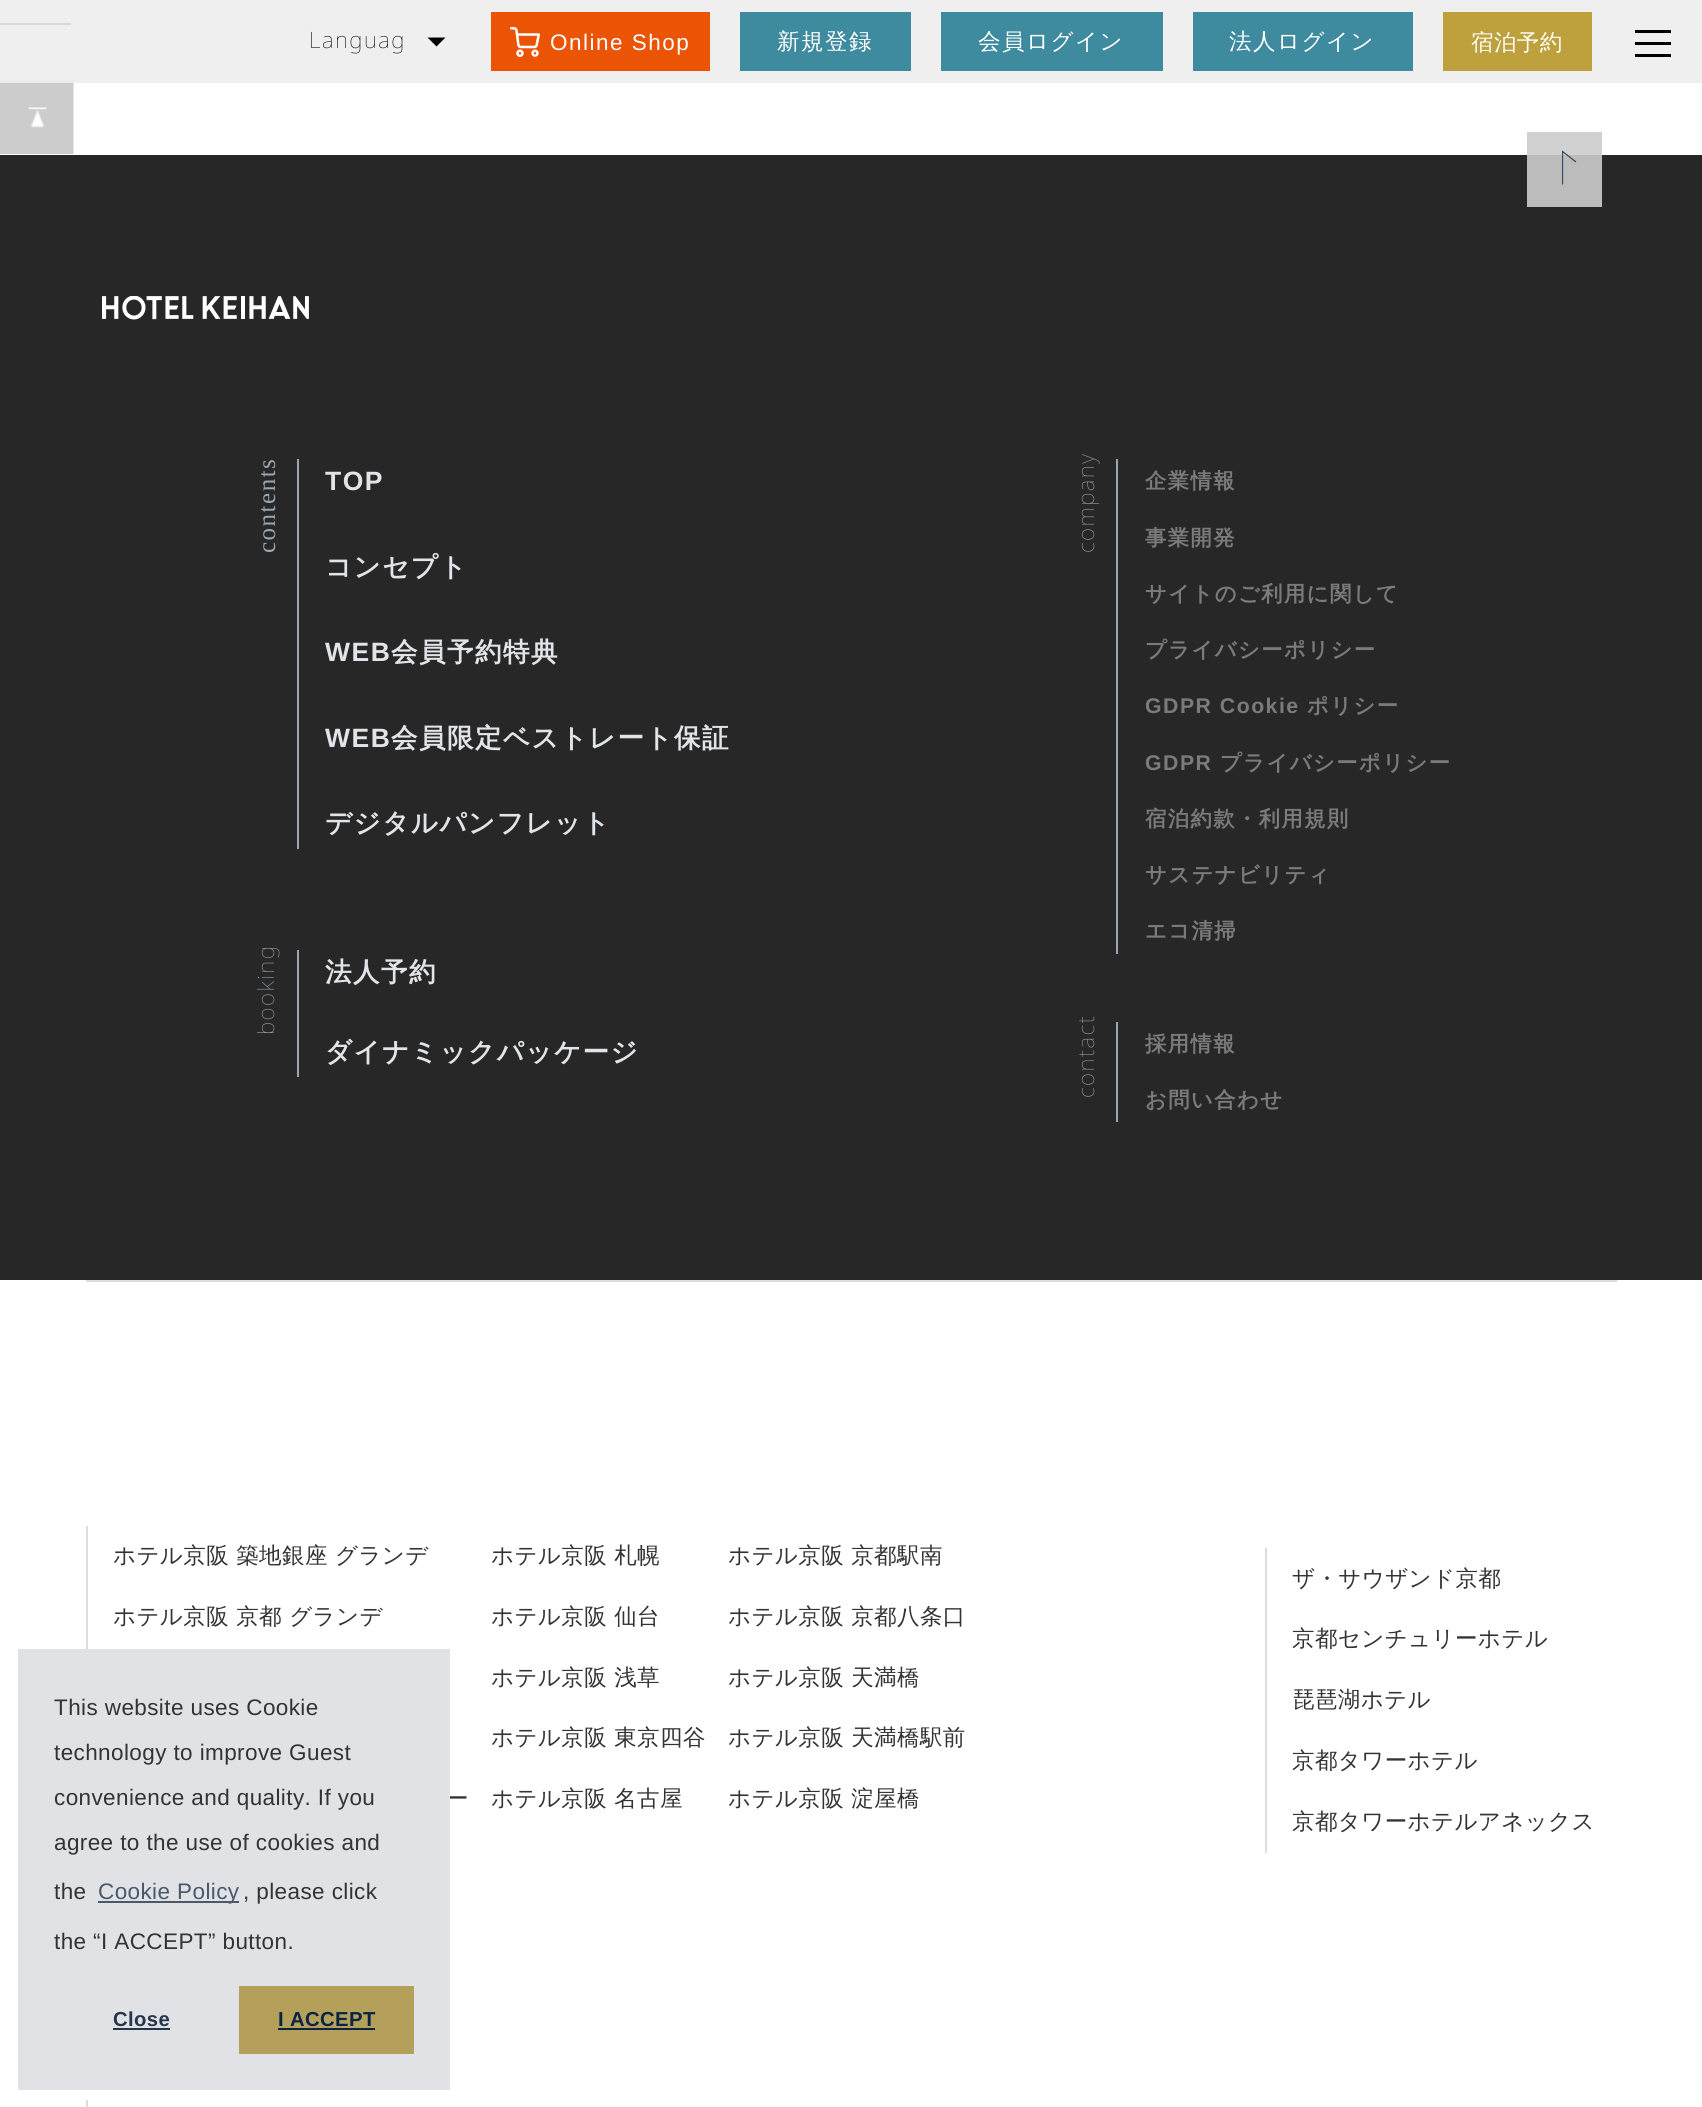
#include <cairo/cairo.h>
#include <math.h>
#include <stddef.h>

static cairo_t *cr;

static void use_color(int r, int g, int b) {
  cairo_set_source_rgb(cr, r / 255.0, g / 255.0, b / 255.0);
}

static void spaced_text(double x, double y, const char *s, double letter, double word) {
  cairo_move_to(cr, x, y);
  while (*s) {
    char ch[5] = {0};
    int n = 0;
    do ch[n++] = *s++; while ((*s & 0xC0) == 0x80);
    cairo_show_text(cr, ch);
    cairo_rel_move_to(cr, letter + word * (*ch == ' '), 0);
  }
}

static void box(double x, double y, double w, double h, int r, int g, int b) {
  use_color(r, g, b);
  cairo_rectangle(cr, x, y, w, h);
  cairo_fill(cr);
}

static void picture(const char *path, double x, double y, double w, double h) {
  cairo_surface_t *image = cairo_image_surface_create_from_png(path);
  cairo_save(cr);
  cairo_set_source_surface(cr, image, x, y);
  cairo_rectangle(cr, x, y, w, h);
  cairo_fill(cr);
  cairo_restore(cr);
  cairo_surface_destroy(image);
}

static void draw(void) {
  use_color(255, 255, 255);
  cairo_paint(cr);
  box(1527, 132, 75, 23, 209, 209, 209);
  box(0, 23, 71, 2, 34, 34, 34);
  picture("img_01.png", 0, 80, 74, 74);
  cairo_set_source_rgba(cr, 0.933, 0.933, 0.933, 0.9);
  cairo_rectangle(cr, 0, 0, 1702, 83);
  cairo_fill(cr);
  use_color(0, 0, 0);
  cairo_new_path(cr);
  cairo_move_to(cr, 427.5, 37.5);
  cairo_line_to(cr, 445.5, 37.5);
  cairo_line_to(cr, 436.5, 46.5);
  cairo_close_path(cr);
  cairo_fill(cr);
  box(491, 12, 219, 59, 234, 84, 4);
  picture("img_02.png", 510, 27, 30, 30);
  box(740, 12, 171, 59, 62, 138, 158);
  box(941, 12, 222, 59, 62, 138, 158);
  box(1193, 12, 220, 59, 62, 138, 158);
  box(1443, 12, 149, 59, 190, 160, 60);
  box(1635, 30, 36, 3, 0, 0, 0);
  box(1635, 42, 36, 3, 0, 0, 0);
  box(1635, 54, 36, 3, 0, 0, 0);
  box(0, 155, 1702, 1125, 39, 39, 39);
  box(1527, 155, 75, 52, 188, 188, 188);
  cairo_save(cr);
  cairo_rectangle(cr, 1562, 150, 15, 35);
  cairo_clip(cr);
  cairo_new_path(cr);
  cairo_move_to(cr, 1562.5, 184.5);
  cairo_line_to(cr, 1562.5, 151.5);
  cairo_line_to(cr, 1576, 162);
  use_color(51, 77, 99);
  cairo_set_line_width(cr, 1.3);
  cairo_stroke(cr);
  cairo_restore(cr);
  picture("img_03.png", 102, 296, 207, 24);
  box(297, 459, 2, 390, 153, 166, 177);
  box(297, 950, 2, 127, 153, 166, 177);
  box(1116, 459, 2, 495, 153, 166, 177);
  box(1116, 1022, 2, 100, 153, 166, 177);
  box(86, 1280, 1531, 2, 221, 221, 221);
  box(86, 1526, 2, 123, 221, 221, 221);
  box(1265, 1548, 2, 305, 221, 221, 221);
  box(86, 2100, 2, 7, 221, 221, 221);
  cairo_select_font_face(cr, "Noto Sans Thin", CAIRO_FONT_SLANT_NORMAL, CAIRO_FONT_WEIGHT_NORMAL);
  cairo_set_font_size(cr, 22.5);
  use_color(0, 0, 0);
  spaced_text(309, 48, "Languag", 1.5, 0);
  cairo_select_font_face(cr, "Liberation Sans", CAIRO_FONT_SLANT_NORMAL, CAIRO_FONT_WEIGHT_NORMAL);
  use_color(255, 255, 255);
  spaced_text(550, 50, "Online Shop", 1.5, 0);
  cairo_select_font_face(cr, "WenQuanYi Zen Hei Medium", CAIRO_FONT_SLANT_NORMAL, CAIRO_FONT_WEIGHT_NORMAL);
  spaced_text(777, 49, "新規登録", 1.5, 0);
  spaced_text(978, 49, "会員ログイン", 1.5, 0);
  spaced_text(1229, 49, "法人ログイン", 1.5, 0);
  spaced_text(1471, 50, "宿泊予約", 0.4, 0);
  cairo_select_font_face(cr, "Liberation Serif", CAIRO_FONT_SLANT_NORMAL, CAIRO_FONT_WEIGHT_NORMAL);
  cairo_set_font_size(cr, 25);
  use_color(153, 166, 177);
  cairo_save(cr);
  cairo_translate(cr, 275, 553);
  cairo_rotate(cr, -90 * M_PI / 180);
  spaced_text(0, 0, "contents", 1.5, 0);
  cairo_restore(cr);
  cairo_select_font_face(cr, "Liberation Sans", CAIRO_FONT_SLANT_NORMAL, CAIRO_FONT_WEIGHT_BOLD);
  cairo_set_font_size(cr, 26.5);
  use_color(225, 228, 232);
  spaced_text(325, 490, "TOP", 1.5, 0);
  cairo_select_font_face(cr, "WenQuanYi Zen Hei", CAIRO_FONT_SLANT_NORMAL, CAIRO_FONT_WEIGHT_BOLD);
  spaced_text(325, 576, "コンセプト", 1.5, 0);
  cairo_select_font_face(cr, "Liberation Sans", CAIRO_FONT_SLANT_NORMAL, CAIRO_FONT_WEIGHT_BOLD);
  spaced_text(325, 661, "WEB", 1.5, 0);
  cairo_select_font_face(cr, "WenQuanYi Zen Hei", CAIRO_FONT_SLANT_NORMAL, CAIRO_FONT_WEIGHT_BOLD);
  spaced_text(391, 661, "会員予約特典", 1.5, 0);
  cairo_select_font_face(cr, "Liberation Sans", CAIRO_FONT_SLANT_NORMAL, CAIRO_FONT_WEIGHT_BOLD);
  spaced_text(325, 747, "WEB", 1.5, 0);
  cairo_select_font_face(cr, "WenQuanYi Zen Hei", CAIRO_FONT_SLANT_NORMAL, CAIRO_FONT_WEIGHT_BOLD);
  spaced_text(391, 747, "会員限定ベストレート保証", 1.5, 0);
  spaced_text(325, 832, "デジタルパンフレット", 1.5, 0);
  cairo_select_font_face(cr, "Noto Sans Thin", CAIRO_FONT_SLANT_NORMAL, CAIRO_FONT_WEIGHT_NORMAL);
  cairo_set_font_size(cr, 22.5);
  use_color(153, 166, 177);
  cairo_save(cr);
  cairo_translate(cr, 274, 1035);
  cairo_rotate(cr, -90 * M_PI / 180);
  spaced_text(0, 0, "booking", 1.5, 0);
  cairo_restore(cr);
  cairo_select_font_face(cr, "WenQuanYi Zen Hei", CAIRO_FONT_SLANT_NORMAL, CAIRO_FONT_WEIGHT_BOLD);
  cairo_set_font_size(cr, 26.5);
  use_color(225, 228, 232);
  spaced_text(325, 981, "法人予約", 1.5, 0);
  spaced_text(325, 1061, "ダイナミックパッケージ", 1.5, 0);
  cairo_select_font_face(cr, "Noto Sans Thin", CAIRO_FONT_SLANT_NORMAL, CAIRO_FONT_WEIGHT_NORMAL);
  cairo_set_font_size(cr, 22.5);
  use_color(153, 166, 177);
  cairo_save(cr);
  cairo_translate(cr, 1094, 553);
  cairo_rotate(cr, -90 * M_PI / 180);
  spaced_text(0, 0, "company", 1.5, 0);
  cairo_restore(cr);
  cairo_select_font_face(cr, "WenQuanYi Zen Hei", CAIRO_FONT_SLANT_NORMAL, CAIRO_FONT_WEIGHT_BOLD);
  cairo_set_font_size(cr, 21.25);
  use_color(123, 123, 123);
  spaced_text(1145, 488, "企業情報", 1.5, 0);
  spaced_text(1145, 545, "事業開発", 1.5, 0);
  spaced_text(1145, 601, "サイトのご利用に関して", 1.5, 0);
  spaced_text(1145, 657, "プライバシーポリシー", 1.5, 0);
  cairo_select_font_face(cr, "Liberation Sans", CAIRO_FONT_SLANT_NORMAL, CAIRO_FONT_WEIGHT_BOLD);
  spaced_text(1145, 713, "GDPR Cookie", 1.5, 0);
  cairo_select_font_face(cr, "WenQuanYi Zen Hei", CAIRO_FONT_SLANT_NORMAL, CAIRO_FONT_WEIGHT_BOLD);
  spaced_text(1307, 713, "ポリシー", 1.5, 0);
  cairo_select_font_face(cr, "Liberation Sans", CAIRO_FONT_SLANT_NORMAL, CAIRO_FONT_WEIGHT_BOLD);
  spaced_text(1145, 770, "GDPR", 1.5, 0);
  cairo_select_font_face(cr, "WenQuanYi Zen Hei", CAIRO_FONT_SLANT_NORMAL, CAIRO_FONT_WEIGHT_BOLD);
  spaced_text(1220, 770, "プライバシーポリシー", 1.5, 0);
  spaced_text(1145, 826, "宿泊約款・利用規則", 1.5, 0);
  spaced_text(1145, 882, "サステナビリティ", 1.5, 0);
  spaced_text(1145, 938, "エコ清掃", 1.5, 0);
  cairo_select_font_face(cr, "Noto Sans Thin", CAIRO_FONT_SLANT_NORMAL, CAIRO_FONT_WEIGHT_NORMAL);
  cairo_set_font_size(cr, 22.5);
  use_color(153, 166, 177);
  cairo_save(cr);
  cairo_translate(cr, 1094, 1098);
  cairo_rotate(cr, -90 * M_PI / 180);
  spaced_text(0, 0, "contact", 1.5, 0);
  cairo_restore(cr);
  cairo_select_font_face(cr, "WenQuanYi Zen Hei", CAIRO_FONT_SLANT_NORMAL, CAIRO_FONT_WEIGHT_BOLD);
  cairo_set_font_size(cr, 21.25);
  use_color(123, 123, 123);
  spaced_text(1145, 1051, "採用情報", 1.5, 0);
  spaced_text(1145, 1107, "お問い合わせ", 1.5, 0);
  cairo_select_font_face(cr, "WenQuanYi Zen Hei Medium", CAIRO_FONT_SLANT_NORMAL, CAIRO_FONT_WEIGHT_NORMAL);
  cairo_set_font_size(cr, 22.5);
  use_color(51, 51, 51);
  spaced_text(113, 1563, "ホテル京阪 築地銀座 グランデ", 0.4, 0);
  spaced_text(113, 1624, "ホテル京阪 京都 グランデ", 0.4, 0);
  spaced_text(446, 1806, "ー", 0.4, 0);
  spaced_text(491, 1563, "ホテル京阪 札幌", 0.4, 0);
  spaced_text(491, 1624, "ホテル京阪 仙台", 0.4, 0);
  spaced_text(491, 1685, "ホテル京阪 浅草", 0.4, 0);
  spaced_text(491, 1745, "ホテル京阪 東京四谷", 0.4, 0);
  spaced_text(491, 1806, "ホテル京阪 名古屋", 0.4, 0);
  spaced_text(728, 1563, "ホテル京阪 京都駅南", 0.4, 0);
  spaced_text(728, 1624, "ホテル京阪 京都八条口", 0.4, 0);
  spaced_text(728, 1685, "ホテル京阪 天満橋", 0.4, 0);
  spaced_text(728, 1745, "ホテル京阪 天満橋駅前", 0.4, 0);
  spaced_text(728, 1806, "ホテル京阪 淀屋橋", 0.4, 0);
  spaced_text(1292, 1586, "ザ・サウザンド京都", 0.4, 0);
  spaced_text(1292, 1646, "京都センチュリーホテル", 0.4, 0);
  spaced_text(1292, 1707, "琵琶湖ホテル", 0.4, 0);
  spaced_text(1292, 1768, "京都タワーホテル", 0.4, 0);
  spaced_text(1292, 1829, "京都タワーホテルアネックス", 0.4, 0);
  box(18, 1649, 432, 441, 225, 226, 230);
  cairo_select_font_face(cr, "Liberation Sans", CAIRO_FONT_SLANT_NORMAL, CAIRO_FONT_WEIGHT_NORMAL);
  use_color(51, 51, 51);
  spaced_text(54, 1715, "This website uses Cookie", 0.4, 0);
  spaced_text(54, 1760, "technology to improve Guest", 0.4, 0);
  spaced_text(54, 1805, "convenience and quality. If you", 0.4, 0);
  spaced_text(54, 1850, "agree to the use of cookies and", 0.4, 0);
  spaced_text(54, 1899, "the", 0.4, 0);
  box(98, 1901, 141, 2, 75, 88, 105);
  spaced_text(98, 1899, "Cookie Policy", 0.4, 0);
  use_color(51, 51, 51);
  spaced_text(243, 1899, ", please click", 0.4, 0);
  spaced_text(54, 1949, "the “I ACCEPT” button.", 0.4, 0);
  cairo_select_font_face(cr, "Liberation Sans", CAIRO_FONT_SLANT_NORMAL, CAIRO_FONT_WEIGHT_BOLD);
  cairo_set_font_size(cr, 20.25);
  use_color(37, 54, 74);
  spaced_text(113, 2026, "Close", 0.4, 0);
  box(113, 2028, 57, 2, 37, 54, 74);
  box(239, 1986, 175, 68, 181, 160, 91);
  use_color(10, 36, 66);
  spaced_text(278, 2026, "I ACCEPT", 0.4, 0);
  box(278, 2028, 97, 2, 10, 36, 66);
}

int main(void) {
  cairo_surface_t *surface = cairo_image_surface_create(CAIRO_FORMAT_RGB24, 1702, 2107);
  cr = cairo_create(surface);
  cairo_font_options_t *options = cairo_font_options_create();
  cairo_font_options_set_hint_metrics(options, CAIRO_HINT_METRICS_OFF);
  cairo_font_options_set_hint_style(options, CAIRO_HINT_STYLE_NONE);
  cairo_set_font_options(cr, options);
  cairo_set_miter_limit(cr, 4);
  draw();
  cairo_surface_write_to_png(surface, "out.png");
  cairo_font_options_destroy(options);
  cairo_destroy(cr);
  cairo_surface_destroy(surface);
  return 0;
}
